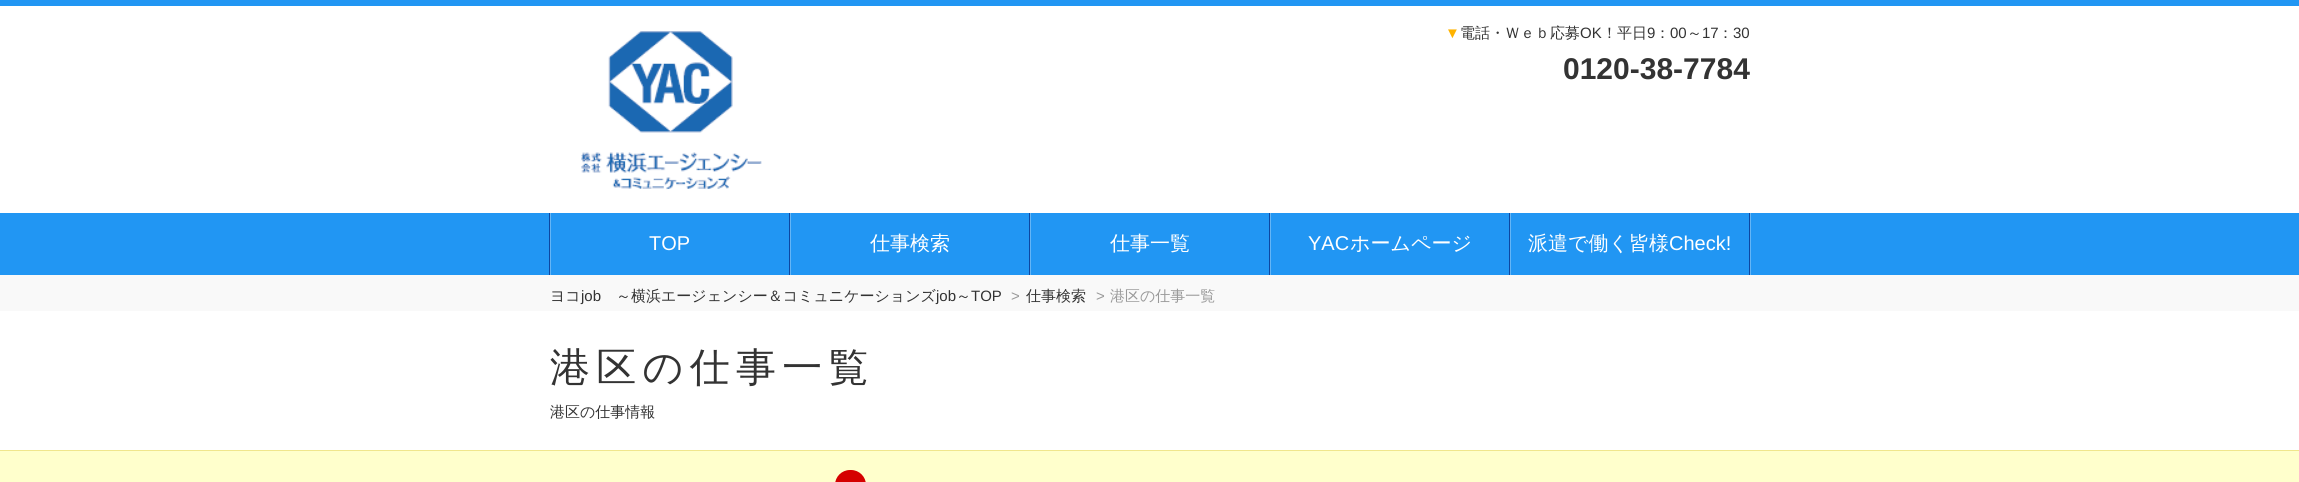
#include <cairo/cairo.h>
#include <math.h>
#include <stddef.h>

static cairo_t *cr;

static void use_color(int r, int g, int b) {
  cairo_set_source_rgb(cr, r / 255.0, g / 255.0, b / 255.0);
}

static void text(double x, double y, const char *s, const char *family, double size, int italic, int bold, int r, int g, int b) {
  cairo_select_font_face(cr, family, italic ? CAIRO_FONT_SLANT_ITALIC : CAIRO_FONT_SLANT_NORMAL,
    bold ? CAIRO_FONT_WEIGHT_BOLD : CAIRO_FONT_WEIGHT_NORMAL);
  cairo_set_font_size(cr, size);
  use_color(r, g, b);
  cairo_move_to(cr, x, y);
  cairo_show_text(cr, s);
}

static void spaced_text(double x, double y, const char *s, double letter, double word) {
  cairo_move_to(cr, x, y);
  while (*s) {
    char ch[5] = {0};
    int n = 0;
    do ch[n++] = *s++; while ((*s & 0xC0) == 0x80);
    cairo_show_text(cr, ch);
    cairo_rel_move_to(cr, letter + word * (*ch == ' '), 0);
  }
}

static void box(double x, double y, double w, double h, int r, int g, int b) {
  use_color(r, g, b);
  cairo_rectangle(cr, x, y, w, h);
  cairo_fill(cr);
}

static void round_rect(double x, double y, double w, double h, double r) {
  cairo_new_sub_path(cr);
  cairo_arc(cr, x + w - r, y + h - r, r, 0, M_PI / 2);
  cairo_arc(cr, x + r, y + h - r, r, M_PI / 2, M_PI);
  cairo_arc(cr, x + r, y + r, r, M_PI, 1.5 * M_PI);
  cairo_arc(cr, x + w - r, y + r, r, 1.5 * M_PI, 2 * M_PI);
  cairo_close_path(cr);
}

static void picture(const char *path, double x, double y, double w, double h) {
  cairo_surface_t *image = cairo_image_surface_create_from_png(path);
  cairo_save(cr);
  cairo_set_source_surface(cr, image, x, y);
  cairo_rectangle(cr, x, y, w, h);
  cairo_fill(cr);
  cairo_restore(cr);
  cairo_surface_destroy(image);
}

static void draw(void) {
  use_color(255, 255, 255);
  cairo_paint(cr);
  box(0, 0, 2299, 6, 33, 150, 243);
  picture("img_01.png", 581, 31, 181, 159);
  box(0, 213, 2299, 62, 33, 150, 243);
  box(1750, 213, 1, 62, 100, 181, 246);
  box(549, 213, 1, 62, 13, 71, 161);
  box(789, 213, 1, 62, 13, 71, 161);
  box(550, 213, 1, 62, 100, 181, 246);
  box(1029, 213, 1, 62, 13, 71, 161);
  box(790, 213, 1, 62, 100, 181, 246);
  box(1269, 213, 1, 62, 13, 71, 161);
  box(1030, 213, 1, 62, 100, 181, 246);
  box(1509, 213, 1, 62, 13, 71, 161);
  box(1270, 213, 1, 62, 100, 181, 246);
  box(1749, 213, 1, 62, 13, 71, 161);
  box(1510, 213, 1, 62, 100, 181, 246);
  box(0, 275, 2299, 36, 249, 249, 249);
  box(0, 451, 2299, 31, 255, 255, 204);
  box(0, 450, 2299, 1, 240, 230, 140);
  use_color(213, 0, 0);
  round_rect(835, 470, 31, 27, 15);
  cairo_fill(cr);
  text(1445, 38, "▼", "Liberation Sans", 15, 0, 0, 255, 179, 0);
  text(1460, 38, "電話・Ｗｅｂ応募", "WenQuanYi Zen Hei Medium", 15, 0, 0, 51, 51, 51);
  text(1580, 38, "OK", "Liberation Sans", 15, 0, 0, 51, 51, 51);
  text(1602, 38, "！平日", "WenQuanYi Zen Hei Medium", 15, 0, 0, 51, 51, 51);
  text(1647, 38, "9", "Liberation Sans", 15, 0, 0, 51, 51, 51);
  text(1655, 38, "：", "WenQuanYi Zen Hei Medium", 15, 0, 0, 51, 51, 51);
  text(1670, 38, "00", "Liberation Sans", 15, 0, 0, 51, 51, 51);
  text(1687, 38, "～", "WenQuanYi Zen Hei Medium", 15, 0, 0, 51, 51, 51);
  text(1702, 38, "17", "Liberation Sans", 15, 0, 0, 51, 51, 51);
  text(1718, 38, "：", "WenQuanYi Zen Hei Medium", 15, 0, 0, 51, 51, 51);
  text(1733, 38, "30", "Liberation Sans", 15, 0, 0, 51, 51, 51);
  text(1563, 79, "0120-38-7784", "Liberation Sans", 30, 0, 1, 51, 51, 51);
  text(649, 250, "TOP", "Liberation Sans", 20, 0, 0, 255, 255, 255);
  text(870, 250, "仕事検索", "WenQuanYi Zen Hei Medium", 20, 0, 0, 255, 255, 255);
  text(1110, 250, "仕事一覧", "WenQuanYi Zen Hei Medium", 20, 0, 0, 255, 255, 255);
  text(1308, 250, "YAC", "Liberation Sans", 20, 0, 0, 255, 255, 255);
  text(1350, 250, "ホームページ", "WenQuanYi Zen Hei Medium", 20, 0, 0, 255, 255, 255);
  text(1528, 250, "派遣で働く皆様", "WenQuanYi Zen Hei Medium", 20, 0, 0, 255, 255, 255);
  text(1669, 250, "Check!", "Liberation Sans", 20, 0, 0, 255, 255, 255);
  text(550, 301, "ヨコ", "WenQuanYi Zen Hei Medium", 15, 0, 0, 51, 51, 51);
  text(581, 301, "job", "Liberation Sans", 15, 0, 0, 51, 51, 51);
  text(616, 301, "～横浜エージェンシー＆コミュニケーションズ", "WenQuanYi Zen Hei Medium", 15, 0, 0, 51, 51, 51);
  text(936, 301, "job", "Liberation Sans", 15, 0, 0, 51, 51, 51);
  text(956, 301, "～", "WenQuanYi Zen Hei Medium", 15, 0, 0, 51, 51, 51);
  text(971, 301, "TOP", "Liberation Sans", 15, 0, 0, 51, 51, 51);
  text(1011, 301, ">", "Liberation Sans", 15, 0, 0, 153, 153, 153);
  text(1026, 301, "仕事検索", "WenQuanYi Zen Hei Medium", 15, 0, 0, 51, 51, 51);
  text(1096, 301, ">", "Liberation Sans", 15, 0, 0, 153, 153, 153);
  text(1110, 301, "港区の仕事一覧", "WenQuanYi Zen Hei Medium", 15, 0, 0, 153, 153, 153);
  cairo_set_font_size(cr, 40);
  use_color(51, 51, 51);
  spaced_text(550, 381, "港区の仕事一覧", 6.25, 0);
  text(550, 417, "港区の仕事情報", "WenQuanYi Zen Hei Medium", 15, 0, 0, 51, 51, 51);
}

int main(void) {
  cairo_surface_t *surface = cairo_image_surface_create(CAIRO_FORMAT_RGB24, 2299, 482);
  cr = cairo_create(surface);
  cairo_font_options_t *options = cairo_font_options_create();
  cairo_font_options_set_hint_metrics(options, CAIRO_HINT_METRICS_OFF);
  cairo_font_options_set_hint_style(options, CAIRO_HINT_STYLE_NONE);
  cairo_set_font_options(cr, options);
  cairo_set_miter_limit(cr, 4);
  draw();
  cairo_surface_write_to_png(surface, "out.png");
  cairo_font_options_destroy(options);
  cairo_destroy(cr);
  cairo_surface_destroy(surface);
  return 0;
}
